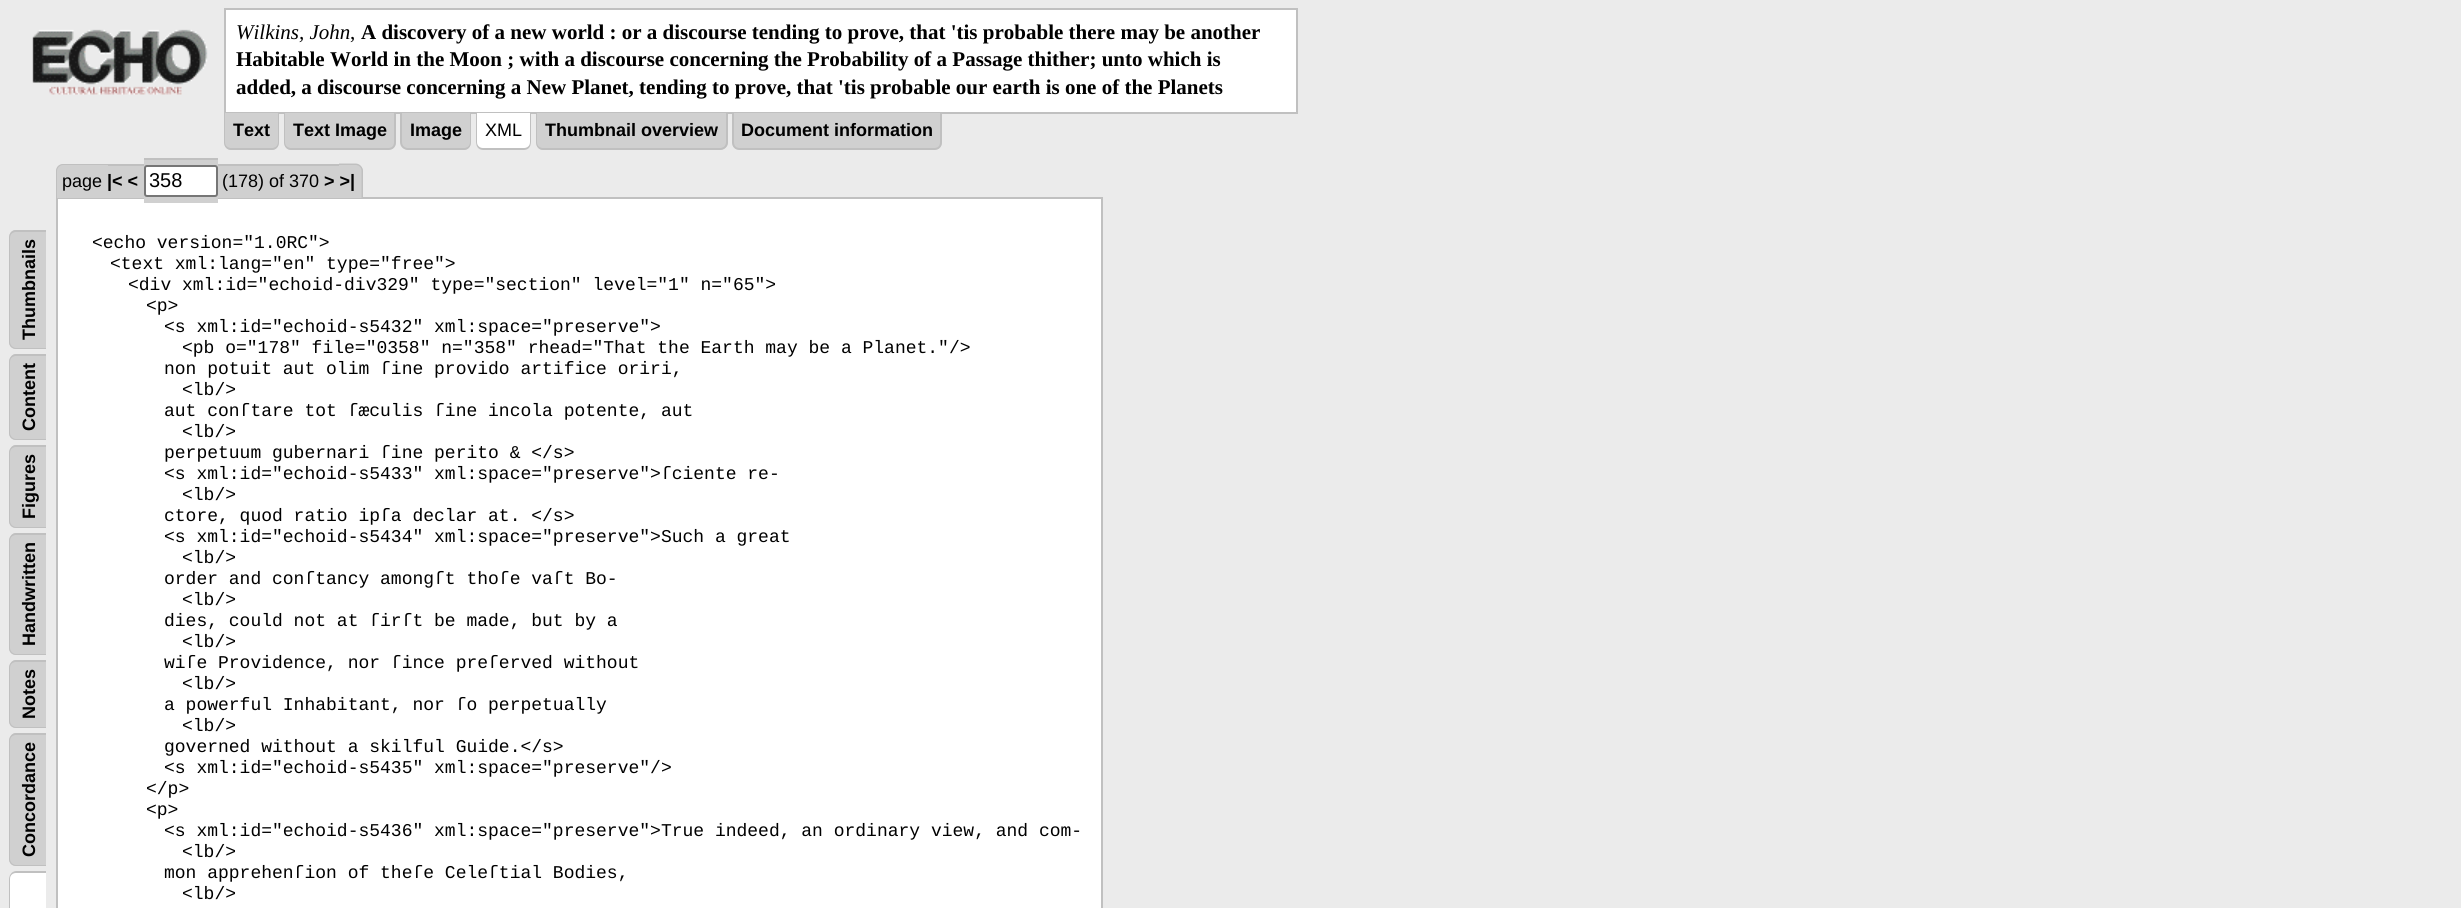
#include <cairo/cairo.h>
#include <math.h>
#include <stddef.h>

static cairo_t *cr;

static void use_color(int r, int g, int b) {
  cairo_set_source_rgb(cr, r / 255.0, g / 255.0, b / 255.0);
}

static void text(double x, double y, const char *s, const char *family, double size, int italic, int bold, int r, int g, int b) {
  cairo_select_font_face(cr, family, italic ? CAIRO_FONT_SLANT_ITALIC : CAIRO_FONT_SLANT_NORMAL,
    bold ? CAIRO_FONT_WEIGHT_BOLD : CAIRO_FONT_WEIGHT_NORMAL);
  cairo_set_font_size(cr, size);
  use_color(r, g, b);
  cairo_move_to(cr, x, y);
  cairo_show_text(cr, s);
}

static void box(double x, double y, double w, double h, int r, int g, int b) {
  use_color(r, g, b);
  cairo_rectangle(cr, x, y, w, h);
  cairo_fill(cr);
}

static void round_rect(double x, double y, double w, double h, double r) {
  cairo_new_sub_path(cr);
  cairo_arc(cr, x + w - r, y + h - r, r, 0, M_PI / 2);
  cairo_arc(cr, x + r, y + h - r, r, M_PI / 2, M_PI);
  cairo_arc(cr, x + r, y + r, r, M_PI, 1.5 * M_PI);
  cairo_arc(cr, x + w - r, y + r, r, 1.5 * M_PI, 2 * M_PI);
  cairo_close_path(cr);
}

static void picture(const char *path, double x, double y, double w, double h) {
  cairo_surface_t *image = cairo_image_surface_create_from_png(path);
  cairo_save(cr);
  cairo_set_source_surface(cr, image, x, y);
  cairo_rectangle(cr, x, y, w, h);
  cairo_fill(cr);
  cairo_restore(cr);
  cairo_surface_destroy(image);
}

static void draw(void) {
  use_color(235, 235, 235);
  cairo_paint(cr);
  picture("img_01.png", 32, 29, 176, 66);
  use_color(255, 255, 255);
  cairo_rectangle(cr, 225, 9, 1072, 104);
  cairo_fill_preserve(cr);
  use_color(192, 192, 192);
  cairo_stroke(cr);
  use_color(208, 208, 208);
  cairo_new_path(cr);
  cairo_move_to(cr, 224, 113);
  cairo_line_to(cr, 279, 113);
  cairo_line_to(cr, 279, 142);
  cairo_curve_to(cr, 279, 146.5, 275.5, 150, 271, 150);
  cairo_line_to(cr, 232, 150);
  cairo_curve_to(cr, 227.5, 150, 224, 146.5, 224, 142);
  cairo_close_path(cr);
  cairo_fill(cr);
  use_color(192, 192, 192);
  cairo_set_fill_rule(cr, CAIRO_FILL_RULE_EVEN_ODD);
  cairo_new_path(cr);
  cairo_move_to(cr, 224, 112);
  cairo_line_to(cr, 279, 112);
  cairo_line_to(cr, 279, 142);
  cairo_curve_to(cr, 279, 147, 276, 150, 272, 150);
  cairo_line_to(cr, 231, 150);
  cairo_curve_to(cr, 227, 150, 224, 147, 224, 142);
  cairo_close_path(cr);
  cairo_move_to(cr, 225, 112);
  cairo_line_to(cr, 278, 112);
  cairo_line_to(cr, 278, 142);
  cairo_curve_to(cr, 278, 146, 275, 148, 272, 148);
  cairo_line_to(cr, 231, 148);
  cairo_curve_to(cr, 228, 148, 225, 146, 225, 142);
  cairo_close_path(cr);
  cairo_fill(cr);
  use_color(208, 208, 208);
  cairo_new_path(cr);
  cairo_move_to(cr, 284, 113);
  cairo_line_to(cr, 396, 113);
  cairo_line_to(cr, 396, 142);
  cairo_curve_to(cr, 396, 146.5, 392.5, 150, 388, 150);
  cairo_line_to(cr, 292, 150);
  cairo_curve_to(cr, 287.5, 150, 284, 146.5, 284, 142);
  cairo_close_path(cr);
  cairo_fill(cr);
  use_color(192, 192, 192);
  cairo_new_path(cr);
  cairo_move_to(cr, 284, 112);
  cairo_line_to(cr, 396, 112);
  cairo_line_to(cr, 396, 142);
  cairo_curve_to(cr, 396, 147, 393, 150, 388, 150);
  cairo_line_to(cr, 291, 150);
  cairo_curve_to(cr, 287, 150, 284, 147, 284, 142);
  cairo_close_path(cr);
  cairo_move_to(cr, 285, 112);
  cairo_line_to(cr, 394, 112);
  cairo_line_to(cr, 394, 142);
  cairo_curve_to(cr, 394, 146, 392, 148, 388, 148);
  cairo_line_to(cr, 291, 148);
  cairo_curve_to(cr, 288, 148, 285, 146, 285, 142);
  cairo_close_path(cr);
  cairo_fill(cr);
  use_color(208, 208, 208);
  cairo_new_path(cr);
  cairo_move_to(cr, 401, 113);
  cairo_line_to(cr, 471, 113);
  cairo_line_to(cr, 471, 142);
  cairo_curve_to(cr, 471, 146.5, 467.5, 150, 463, 150);
  cairo_line_to(cr, 409, 150);
  cairo_curve_to(cr, 404.5, 150, 401, 146.5, 401, 142);
  cairo_close_path(cr);
  cairo_fill(cr);
  use_color(192, 192, 192);
  cairo_new_path(cr);
  cairo_move_to(cr, 400, 112);
  cairo_line_to(cr, 471, 112);
  cairo_line_to(cr, 471, 142);
  cairo_curve_to(cr, 471, 147, 468, 150, 464, 150);
  cairo_line_to(cr, 408, 150);
  cairo_curve_to(cr, 404, 150, 400, 147, 400, 142);
  cairo_close_path(cr);
  cairo_move_to(cr, 402, 112);
  cairo_line_to(cr, 470, 112);
  cairo_line_to(cr, 470, 142);
  cairo_curve_to(cr, 470, 146, 467, 148, 464, 148);
  cairo_line_to(cr, 408, 148);
  cairo_curve_to(cr, 405, 148, 402, 146, 402, 142);
  cairo_close_path(cr);
  cairo_fill(cr);
  use_color(255, 255, 255);
  cairo_new_path(cr);
  cairo_move_to(cr, 476, 113);
  cairo_line_to(cr, 531, 113);
  cairo_line_to(cr, 531, 142);
  cairo_curve_to(cr, 531, 146.5, 527.5, 150, 523, 150);
  cairo_line_to(cr, 484, 150);
  cairo_curve_to(cr, 479.5, 150, 476, 146.5, 476, 142);
  cairo_close_path(cr);
  cairo_fill(cr);
  use_color(192, 192, 192);
  cairo_new_path(cr);
  cairo_move_to(cr, 476, 112);
  cairo_line_to(cr, 531, 112);
  cairo_line_to(cr, 531, 142);
  cairo_curve_to(cr, 531, 147, 528, 150, 524, 150);
  cairo_line_to(cr, 483, 150);
  cairo_curve_to(cr, 479, 150, 476, 147, 476, 142);
  cairo_close_path(cr);
  cairo_move_to(cr, 477, 112);
  cairo_line_to(cr, 530, 112);
  cairo_line_to(cr, 530, 142);
  cairo_curve_to(cr, 530, 146, 527, 148, 524, 148);
  cairo_line_to(cr, 483, 148);
  cairo_curve_to(cr, 480, 148, 477, 146, 477, 142);
  cairo_close_path(cr);
  cairo_fill(cr);
  use_color(208, 208, 208);
  cairo_new_path(cr);
  cairo_move_to(cr, 536, 113);
  cairo_line_to(cr, 728, 113);
  cairo_line_to(cr, 728, 142);
  cairo_curve_to(cr, 728, 146.5, 724.5, 150, 720, 150);
  cairo_line_to(cr, 544, 150);
  cairo_curve_to(cr, 539.5, 150, 536, 146.5, 536, 142);
  cairo_close_path(cr);
  cairo_fill(cr);
  use_color(192, 192, 192);
  cairo_new_path(cr);
  cairo_move_to(cr, 536, 112);
  cairo_line_to(cr, 728, 112);
  cairo_line_to(cr, 728, 142);
  cairo_curve_to(cr, 728, 147, 724, 150, 720, 150);
  cairo_line_to(cr, 543, 150);
  cairo_curve_to(cr, 539, 150, 536, 147, 536, 142);
  cairo_close_path(cr);
  cairo_move_to(cr, 537, 112);
  cairo_line_to(cr, 726, 112);
  cairo_line_to(cr, 726, 142);
  cairo_curve_to(cr, 726, 146, 723, 148, 720, 148);
  cairo_line_to(cr, 543, 148);
  cairo_curve_to(cr, 540, 148, 537, 146, 537, 142);
  cairo_close_path(cr);
  cairo_fill(cr);
  use_color(208, 208, 208);
  cairo_new_path(cr);
  cairo_move_to(cr, 732, 113);
  cairo_line_to(cr, 942, 113);
  cairo_line_to(cr, 942, 142);
  cairo_curve_to(cr, 942, 146.5, 938.5, 150, 934, 150);
  cairo_line_to(cr, 740, 150);
  cairo_curve_to(cr, 735.5, 150, 732, 146.5, 732, 142);
  cairo_close_path(cr);
  cairo_fill(cr);
  use_color(192, 192, 192);
  cairo_new_path(cr);
  cairo_move_to(cr, 732, 112);
  cairo_line_to(cr, 942, 112);
  cairo_line_to(cr, 942, 142);
  cairo_curve_to(cr, 942, 147, 939, 150, 934, 150);
  cairo_line_to(cr, 740, 150);
  cairo_curve_to(cr, 735, 150, 732, 147, 732, 142);
  cairo_close_path(cr);
  cairo_move_to(cr, 734, 112);
  cairo_line_to(cr, 940, 112);
  cairo_line_to(cr, 940, 142);
  cairo_curve_to(cr, 940, 146, 938, 148, 934, 148);
  cairo_line_to(cr, 740, 148);
  cairo_curve_to(cr, 736, 148, 734, 146, 734, 142);
  cairo_close_path(cr);
  cairo_fill(cr);
  use_color(208, 208, 208);
  cairo_set_fill_rule(cr, CAIRO_FILL_RULE_WINDING);
  cairo_new_path(cr);
  cairo_move_to(cr, 9, 342);
  cairo_line_to(cr, 9, 238);
  cairo_curve_to(cr, 9, 233, 12, 230, 16, 230);
  cairo_line_to(cr, 46, 230);
  cairo_line_to(cr, 46, 349);
  cairo_line_to(cr, 16, 349);
  cairo_curve_to(cr, 12, 349, 9, 346, 9, 342);
  cairo_close_path(cr);
  cairo_fill(cr);
  use_color(192, 192, 192);
  cairo_set_fill_rule(cr, CAIRO_FILL_RULE_EVEN_ODD);
  cairo_new_path(cr);
  cairo_move_to(cr, 9, 342);
  cairo_line_to(cr, 9, 238);
  cairo_curve_to(cr, 9, 233, 12, 230, 16, 230);
  cairo_line_to(cr, 46, 230);
  cairo_line_to(cr, 46, 349);
  cairo_line_to(cr, 16, 349);
  cairo_curve_to(cr, 12, 349, 9, 346, 9, 342);
  cairo_close_path(cr);
  cairo_move_to(cr, 10, 342);
  cairo_line_to(cr, 10, 238);
  cairo_curve_to(cr, 10, 234, 13, 232, 16, 232);
  cairo_line_to(cr, 46, 232);
  cairo_line_to(cr, 46, 348);
  cairo_line_to(cr, 16, 348);
  cairo_curve_to(cr, 13, 348, 10, 345, 10, 342);
  cairo_close_path(cr);
  cairo_fill(cr);
  use_color(208, 208, 208);
  cairo_set_fill_rule(cr, CAIRO_FILL_RULE_WINDING);
  cairo_new_path(cr);
  cairo_move_to(cr, 9, 433);
  cairo_line_to(cr, 9, 362);
  cairo_curve_to(cr, 9, 358, 12, 354, 16, 354);
  cairo_line_to(cr, 46, 354);
  cairo_line_to(cr, 46, 440);
  cairo_line_to(cr, 16, 440);
  cairo_curve_to(cr, 12, 440, 9, 437, 9, 433);
  cairo_close_path(cr);
  cairo_fill(cr);
  use_color(192, 192, 192);
  cairo_set_fill_rule(cr, CAIRO_FILL_RULE_EVEN_ODD);
  cairo_new_path(cr);
  cairo_move_to(cr, 9, 433);
  cairo_line_to(cr, 9, 362);
  cairo_curve_to(cr, 9, 358, 12, 354, 16, 354);
  cairo_line_to(cr, 46, 354);
  cairo_line_to(cr, 46, 440);
  cairo_line_to(cr, 16, 440);
  cairo_curve_to(cr, 12, 440, 9, 437, 9, 433);
  cairo_close_path(cr);
  cairo_move_to(cr, 10, 433);
  cairo_line_to(cr, 10, 362);
  cairo_curve_to(cr, 10, 358, 13, 356, 16, 356);
  cairo_line_to(cr, 46, 356);
  cairo_line_to(cr, 46, 439);
  cairo_line_to(cr, 16, 439);
  cairo_curve_to(cr, 13, 439, 10, 436, 10, 433);
  cairo_close_path(cr);
  cairo_fill(cr);
  use_color(208, 208, 208);
  cairo_set_fill_rule(cr, CAIRO_FILL_RULE_WINDING);
  cairo_new_path(cr);
  cairo_move_to(cr, 9, 521);
  cairo_line_to(cr, 9, 453);
  cairo_curve_to(cr, 9, 449, 12, 445, 16, 445);
  cairo_line_to(cr, 46, 445);
  cairo_line_to(cr, 46, 528);
  cairo_line_to(cr, 16, 528);
  cairo_curve_to(cr, 12, 528, 9, 525, 9, 521);
  cairo_close_path(cr);
  cairo_fill(cr);
  use_color(192, 192, 192);
  cairo_set_fill_rule(cr, CAIRO_FILL_RULE_EVEN_ODD);
  cairo_new_path(cr);
  cairo_move_to(cr, 9, 521);
  cairo_line_to(cr, 9, 453);
  cairo_curve_to(cr, 9, 449, 12, 445, 16, 445);
  cairo_line_to(cr, 46, 445);
  cairo_line_to(cr, 46, 528);
  cairo_line_to(cr, 16, 528);
  cairo_curve_to(cr, 12, 528, 9, 525, 9, 521);
  cairo_close_path(cr);
  cairo_move_to(cr, 10, 521);
  cairo_line_to(cr, 10, 453);
  cairo_curve_to(cr, 10, 449, 13, 447, 16, 447);
  cairo_line_to(cr, 46, 447);
  cairo_line_to(cr, 46, 527);
  cairo_line_to(cr, 16, 527);
  cairo_curve_to(cr, 13, 527, 10, 524, 10, 521);
  cairo_close_path(cr);
  cairo_fill(cr);
  use_color(208, 208, 208);
  cairo_set_fill_rule(cr, CAIRO_FILL_RULE_WINDING);
  cairo_new_path(cr);
  cairo_move_to(cr, 9, 648);
  cairo_line_to(cr, 9, 541);
  cairo_curve_to(cr, 9, 537, 12, 533, 16, 533);
  cairo_line_to(cr, 46, 533);
  cairo_line_to(cr, 46, 655);
  cairo_line_to(cr, 16, 655);
  cairo_curve_to(cr, 12, 655, 9, 652, 9, 648);
  cairo_close_path(cr);
  cairo_fill(cr);
  use_color(192, 192, 192);
  cairo_set_fill_rule(cr, CAIRO_FILL_RULE_EVEN_ODD);
  cairo_new_path(cr);
  cairo_move_to(cr, 9, 648);
  cairo_line_to(cr, 9, 541);
  cairo_curve_to(cr, 9, 537, 12, 533, 16, 533);
  cairo_line_to(cr, 46, 533);
  cairo_line_to(cr, 46, 655);
  cairo_line_to(cr, 16, 655);
  cairo_curve_to(cr, 12, 655, 9, 652, 9, 648);
  cairo_close_path(cr);
  cairo_move_to(cr, 10, 648);
  cairo_line_to(cr, 10, 541);
  cairo_curve_to(cr, 10, 537, 13, 535, 16, 535);
  cairo_line_to(cr, 46, 535);
  cairo_line_to(cr, 46, 654);
  cairo_line_to(cr, 16, 654);
  cairo_curve_to(cr, 13, 654, 10, 651, 10, 648);
  cairo_close_path(cr);
  cairo_fill(cr);
  use_color(208, 208, 208);
  cairo_set_fill_rule(cr, CAIRO_FILL_RULE_WINDING);
  cairo_new_path(cr);
  cairo_move_to(cr, 9, 721);
  cairo_line_to(cr, 9, 668);
  cairo_curve_to(cr, 9, 664, 12, 660, 16, 660);
  cairo_line_to(cr, 46, 660);
  cairo_line_to(cr, 46, 728);
  cairo_line_to(cr, 16, 728);
  cairo_curve_to(cr, 12, 728, 9, 725, 9, 721);
  cairo_close_path(cr);
  cairo_fill(cr);
  use_color(192, 192, 192);
  cairo_set_fill_rule(cr, CAIRO_FILL_RULE_EVEN_ODD);
  cairo_new_path(cr);
  cairo_move_to(cr, 9, 721);
  cairo_line_to(cr, 9, 668);
  cairo_curve_to(cr, 9, 664, 12, 660, 16, 660);
  cairo_line_to(cr, 46, 660);
  cairo_line_to(cr, 46, 728);
  cairo_line_to(cr, 16, 728);
  cairo_curve_to(cr, 12, 728, 9, 725, 9, 721);
  cairo_close_path(cr);
  cairo_move_to(cr, 10, 721);
  cairo_line_to(cr, 10, 668);
  cairo_curve_to(cr, 10, 664, 13, 662, 16, 662);
  cairo_line_to(cr, 46, 662);
  cairo_line_to(cr, 46, 727);
  cairo_line_to(cr, 16, 727);
  cairo_curve_to(cr, 13, 727, 10, 724, 10, 721);
  cairo_close_path(cr);
  cairo_fill(cr);
  use_color(208, 208, 208);
  cairo_set_fill_rule(cr, CAIRO_FILL_RULE_WINDING);
  cairo_new_path(cr);
  cairo_move_to(cr, 9, 859);
  cairo_line_to(cr, 9, 741);
  cairo_curve_to(cr, 9, 737, 12, 733, 16, 733);
  cairo_line_to(cr, 46, 733);
  cairo_line_to(cr, 46, 866);
  cairo_line_to(cr, 16, 866);
  cairo_curve_to(cr, 12, 866, 9, 863, 9, 859);
  cairo_close_path(cr);
  cairo_fill(cr);
  use_color(192, 192, 192);
  cairo_set_fill_rule(cr, CAIRO_FILL_RULE_EVEN_ODD);
  cairo_new_path(cr);
  cairo_move_to(cr, 9, 859);
  cairo_line_to(cr, 9, 741);
  cairo_curve_to(cr, 9, 737, 12, 733, 16, 733);
  cairo_line_to(cr, 46, 733);
  cairo_line_to(cr, 46, 866);
  cairo_line_to(cr, 16, 866);
  cairo_curve_to(cr, 12, 866, 9, 863, 9, 859);
  cairo_close_path(cr);
  cairo_move_to(cr, 10, 859);
  cairo_line_to(cr, 10, 741);
  cairo_curve_to(cr, 10, 737, 13, 735, 16, 735);
  cairo_line_to(cr, 46, 735);
  cairo_line_to(cr, 46, 865);
  cairo_line_to(cr, 16, 865);
  cairo_curve_to(cr, 13, 865, 10, 862, 10, 859);
  cairo_close_path(cr);
  cairo_fill(cr);
  use_color(255, 255, 255);
  cairo_set_fill_rule(cr, CAIRO_FILL_RULE_WINDING);
  cairo_new_path(cr);
  cairo_move_to(cr, 9, 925);
  cairo_line_to(cr, 9, 879);
  cairo_curve_to(cr, 9, 875, 12, 871, 16, 871);
  cairo_line_to(cr, 46, 871);
  cairo_line_to(cr, 46, 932);
  cairo_line_to(cr, 16, 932);
  cairo_curve_to(cr, 12, 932, 9, 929, 9, 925);
  cairo_close_path(cr);
  cairo_fill(cr);
  use_color(192, 192, 192);
  cairo_set_fill_rule(cr, CAIRO_FILL_RULE_EVEN_ODD);
  cairo_new_path(cr);
  cairo_move_to(cr, 9, 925);
  cairo_line_to(cr, 9, 879);
  cairo_curve_to(cr, 9, 875, 12, 871, 16, 871);
  cairo_line_to(cr, 46, 871);
  cairo_line_to(cr, 46, 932);
  cairo_line_to(cr, 16, 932);
  cairo_curve_to(cr, 12, 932, 9, 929, 9, 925);
  cairo_close_path(cr);
  cairo_move_to(cr, 10, 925);
  cairo_line_to(cr, 10, 879);
  cairo_curve_to(cr, 10, 875, 13, 873, 16, 873);
  cairo_line_to(cr, 46, 873);
  cairo_line_to(cr, 46, 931);
  cairo_line_to(cr, 16, 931);
  cairo_curve_to(cr, 13, 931, 10, 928, 10, 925);
  cairo_close_path(cr);
  cairo_fill(cr);
  use_color(255, 255, 255);
  cairo_rectangle(cr, 57, 198, 1045, 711);
  cairo_fill_preserve(cr);
  use_color(192, 192, 192);
  cairo_stroke(cr);
  use_color(208, 208, 208);
  cairo_new_path(cr);
  cairo_move_to(cr, 64, 164);
  cairo_line_to(cr, 108, 164);
  cairo_line_to(cr, 108, 198);
  cairo_line_to(cr, 56, 198);
  cairo_line_to(cr, 56, 172);
  cairo_curve_to(cr, 56, 167.5, 59.5, 164, 64, 164);
  cairo_close_path(cr);
  cairo_fill(cr);
  use_color(192, 192, 192);
  cairo_new_path(cr);
  cairo_move_to(cr, 63, 164);
  cairo_line_to(cr, 108, 164);
  cairo_line_to(cr, 108, 198);
  cairo_line_to(cr, 56, 198);
  cairo_line_to(cr, 56, 171);
  cairo_curve_to(cr, 56, 167, 59, 164, 63, 164);
  cairo_close_path(cr);
  cairo_move_to(cr, 63, 165);
  cairo_line_to(cr, 108, 165);
  cairo_line_to(cr, 108, 198);
  cairo_line_to(cr, 57, 198);
  cairo_line_to(cr, 57, 171);
  cairo_curve_to(cr, 57, 168, 60, 165, 63, 165);
  cairo_close_path(cr);
  cairo_fill(cr);
  box(108, 166, 15, 32, 208, 208, 208);
  box(108, 164, 15, 2, 192, 192, 192);
  box(123, 164, 5, 34, 208, 208, 208);
  box(123, 164, 15, 2, 192, 192, 192);
  box(128, 166, 10, 32, 208, 208, 208);
  box(138, 164, 6, 34, 208, 208, 208);
  box(138, 164, 6, 2, 192, 192, 192);
  box(144, 160, 74, 43, 208, 208, 208);
  box(144, 158, 74, 2, 192, 192, 192);
  box(218, 164, 4, 34, 208, 208, 208);
  box(218, 164, 117, 2, 192, 192, 192);
  box(222, 166, 113, 32, 208, 208, 208);
  box(335, 164, 4, 34, 208, 208, 208);
  box(335, 164, 5, 2, 192, 192, 192);
  use_color(208, 208, 208);
  cairo_new_path(cr);
  cairo_move_to(cr, 339, 164);
  cairo_line_to(cr, 355, 164);
  cairo_curve_to(cr, 359.5, 164, 363, 167.5, 363, 172);
  cairo_line_to(cr, 363, 198);
  cairo_line_to(cr, 339, 198);
  cairo_close_path(cr);
  cairo_fill(cr);
  use_color(192, 192, 192);
  cairo_new_path(cr);
  cairo_move_to(cr, 339, 163.5);
  cairo_line_to(cr, 355.5, 163.5);
  cairo_curve_to(cr, 359.5, 163.5, 363, 167, 363, 171);
  cairo_line_to(cr, 363, 198);
  cairo_line_to(cr, 339, 198);
  cairo_close_path(cr);
  cairo_move_to(cr, 339, 165);
  cairo_line_to(cr, 355.5, 165);
  cairo_curve_to(cr, 359, 165, 361.5, 167.5, 361.5, 171);
  cairo_line_to(cr, 361.5, 198);
  cairo_line_to(cr, 339, 198);
  cairo_close_path(cr);
  cairo_fill(cr);
  use_color(255, 255, 255);
  round_rect(145, 166, 72, 30, 2);
  cairo_fill_preserve(cr);
  use_color(118, 118, 118);
  cairo_stroke(cr);
  text(236, 39, "Wilkins, John", "Liberation Serif", 21, 1, 0, 0, 0, 0);
  text(350, 39, ",", "Liberation Serif", 21, 0, 0, 0, 0, 0);
  text(361, 39, "A discovery of a new world : or a discourse tending to prove, that 'tis probable there may be another", "Liberation Serif", 21, 0, 1, 0, 0, 0);
  text(236, 66, "Habitable World in the Moon ; with a discourse concerning the Probability of a Passage thither; unto which is", "Liberation Serif", 21, 0, 1, 0, 0, 0);
  text(236, 94, "added, a discourse concerning a New Planet, tending to prove, that 'tis probable our earth is one of the Planets", "Liberation Serif", 21, 0, 1, 0, 0, 0);
  text(233, 136, "Text", "Liberation Sans", 18, 0, 1, 0, 0, 0);
  text(293, 136, "Text Image", "Liberation Sans", 18, 0, 1, 0, 0, 0);
  text(410, 136, "Image", "Liberation Sans", 18, 0, 1, 0, 0, 0);
  text(485, 136, "XML", "Liberation Sans", 18, 0, 0, 0, 0, 0);
  text(545, 136, "Thumbnail overview", "Liberation Sans", 18, 0, 1, 0, 0, 0);
  text(741, 136, "Document information", "Liberation Sans", 18, 0, 1, 0, 0, 0);
  cairo_save(cr);
  cairo_translate(cr, 35, 340);
  cairo_rotate(cr, -90 * M_PI / 180);
  text(0, 0, "Thumbnails", "Liberation Sans", 18, 0, 1, 0, 0, 0);
  cairo_restore(cr);
  cairo_save(cr);
  cairo_translate(cr, 35, 431);
  cairo_rotate(cr, -90 * M_PI / 180);
  text(0, 0, "Content", "Liberation Sans", 18, 0, 1, 0, 0, 0);
  cairo_restore(cr);
  cairo_save(cr);
  cairo_translate(cr, 35, 519);
  cairo_rotate(cr, -90 * M_PI / 180);
  text(0, 0, "Figures", "Liberation Sans", 18, 0, 1, 0, 0, 0);
  cairo_restore(cr);
  cairo_save(cr);
  cairo_translate(cr, 35, 646);
  cairo_rotate(cr, -90 * M_PI / 180);
  text(0, 0, "Handwritten", "Liberation Sans", 18, 0, 1, 0, 0, 0);
  cairo_restore(cr);
  cairo_save(cr);
  cairo_translate(cr, 35, 719);
  cairo_rotate(cr, -90 * M_PI / 180);
  text(0, 0, "Notes", "Liberation Sans", 18, 0, 1, 0, 0, 0);
  cairo_restore(cr);
  cairo_save(cr);
  cairo_translate(cr, 35, 857);
  cairo_rotate(cr, -90 * M_PI / 180);
  text(0, 0, "Concordance", "Liberation Sans", 18, 0, 1, 0, 0, 0);
  cairo_restore(cr);
  text(62, 187, "page", "Liberation Sans", 18, 0, 0, 0, 0, 0);
  text(107, 187, "|< <", "Liberation Sans", 18, 0, 1, 0, 0, 0);
  text(149, 187, "358", "Liberation Sans", 20, 0, 0, 0, 0, 0);
  text(222, 187, "(178) of 370", "Liberation Sans", 18, 0, 0, 0, 0, 0);
  text(324, 187, "> >|", "Liberation Sans", 18, 0, 1, 0, 0, 0);
  text(92, 248, "<echo version=\"1.0RC\">", "Liberation Mono", 18, 0, 0, 0, 0, 0);
  text(110, 269, "<text xml:lang=\"en\" type=\"free\">", "Liberation Mono", 18, 0, 0, 0, 0, 0);
  text(128, 290, "<div xml:id=\"echoid-div329\" type=\"section\" level=\"1\" n=\"65\">", "Liberation Mono", 18, 0, 0, 0, 0, 0);
  text(146, 311, "<p>", "Liberation Mono", 18, 0, 0, 0, 0, 0);
  text(164, 332, "<s xml:id=\"echoid-s5432\" xml:space=\"preserve\">", "Liberation Mono", 18, 0, 0, 0, 0, 0);
  text(182, 353, "<pb o=\"178\" file=\"0358\" n=\"358\" rhead=\"That the Earth may be a Planet.\"/>", "Liberation Mono", 18, 0, 0, 0, 0, 0);
  text(164, 374, "non potuit aut olim ſine provido artifice oriri,", "Liberation Mono", 18, 0, 0, 0, 0, 0);
  text(182, 395, "<lb/>", "Liberation Mono", 18, 0, 0, 0, 0, 0);
  text(164, 416, "aut conſtare tot ſæculis ſine incola potente, aut", "Liberation Mono", 18, 0, 0, 0, 0, 0);
  text(182, 437, "<lb/>", "Liberation Mono", 18, 0, 0, 0, 0, 0);
  text(164, 458, "perpetuum gubernari ſine perito & </s>", "Liberation Mono", 18, 0, 0, 0, 0, 0);
  text(164, 479, "<s xml:id=\"echoid-s5433\" xml:space=\"preserve\">ſciente re-", "Liberation Mono", 18, 0, 0, 0, 0, 0);
  text(182, 500, "<lb/>", "Liberation Mono", 18, 0, 0, 0, 0, 0);
  text(164, 521, "ctore, quod ratio ipſa declar at. </s>", "Liberation Mono", 18, 0, 0, 0, 0, 0);
  text(164, 542, "<s xml:id=\"echoid-s5434\" xml:space=\"preserve\">Such a great", "Liberation Mono", 18, 0, 0, 0, 0, 0);
  text(182, 563, "<lb/>", "Liberation Mono", 18, 0, 0, 0, 0, 0);
  text(164, 584, "order and conſtancy amongſt thoſe vaſt Bo-", "Liberation Mono", 18, 0, 0, 0, 0, 0);
  text(182, 605, "<lb/>", "Liberation Mono", 18, 0, 0, 0, 0, 0);
  text(164, 626, "dies, could not at ſirſt be made, but by a", "Liberation Mono", 18, 0, 0, 0, 0, 0);
  text(182, 647, "<lb/>", "Liberation Mono", 18, 0, 0, 0, 0, 0);
  text(164, 668, "wiſe Providence, nor ſince preſerved without", "Liberation Mono", 18, 0, 0, 0, 0, 0);
  text(182, 689, "<lb/>", "Liberation Mono", 18, 0, 0, 0, 0, 0);
  text(164, 710, "a powerful Inhabitant, nor ſo perpetually", "Liberation Mono", 18, 0, 0, 0, 0, 0);
  text(182, 731, "<lb/>", "Liberation Mono", 18, 0, 0, 0, 0, 0);
  text(164, 752, "governed without a skilful Guide.</s>", "Liberation Mono", 18, 0, 0, 0, 0, 0);
  text(164, 773, "<s xml:id=\"echoid-s5435\" xml:space=\"preserve\"/>", "Liberation Mono", 18, 0, 0, 0, 0, 0);
  text(146, 794, "</p>", "Liberation Mono", 18, 0, 0, 0, 0, 0);
  text(146, 815, "<p>", "Liberation Mono", 18, 0, 0, 0, 0, 0);
  text(164, 836, "<s xml:id=\"echoid-s5436\" xml:space=\"preserve\">True indeed, an ordinary view, and com-", "Liberation Mono", 18, 0, 0, 0, 0, 0);
  text(182, 857, "<lb/>", "Liberation Mono", 18, 0, 0, 0, 0, 0);
  text(164, 878, "mon apprehenſion of theſe Celeſtial Bodies,", "Liberation Mono", 18, 0, 0, 0, 0, 0);
  text(182, 899, "<lb/>", "Liberation Mono", 18, 0, 0, 0, 0, 0);
}

int main(void) {
  cairo_surface_t *surface = cairo_image_surface_create(CAIRO_FORMAT_RGB24, 2461, 908);
  cr = cairo_create(surface);
  cairo_font_options_t *options = cairo_font_options_create();
  cairo_font_options_set_hint_metrics(options, CAIRO_HINT_METRICS_OFF);
  cairo_font_options_set_hint_style(options, CAIRO_HINT_STYLE_NONE);
  cairo_set_font_options(cr, options);
  cairo_set_miter_limit(cr, 4);
  draw();
  cairo_surface_write_to_png(surface, "out.png");
  cairo_font_options_destroy(options);
  cairo_destroy(cr);
  cairo_surface_destroy(surface);
  return 0;
}
